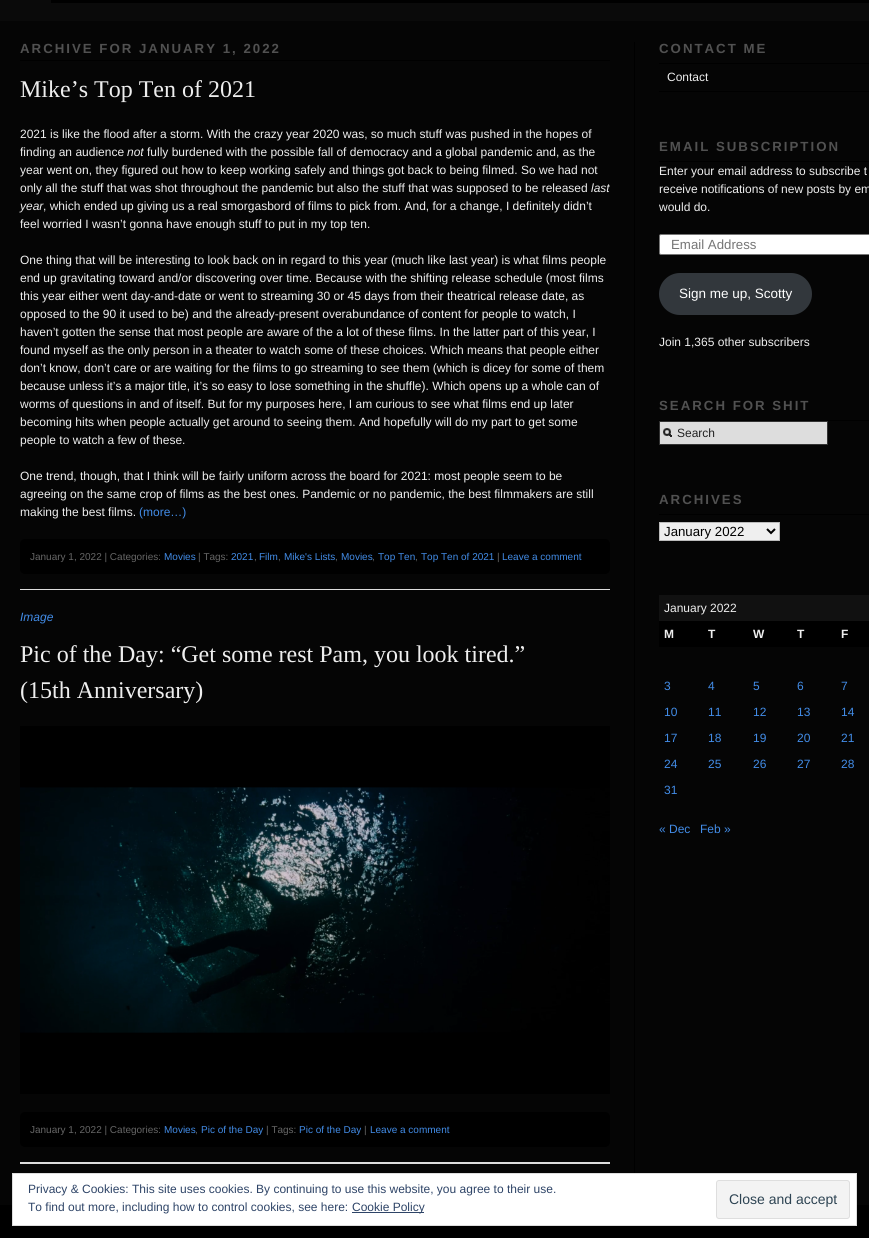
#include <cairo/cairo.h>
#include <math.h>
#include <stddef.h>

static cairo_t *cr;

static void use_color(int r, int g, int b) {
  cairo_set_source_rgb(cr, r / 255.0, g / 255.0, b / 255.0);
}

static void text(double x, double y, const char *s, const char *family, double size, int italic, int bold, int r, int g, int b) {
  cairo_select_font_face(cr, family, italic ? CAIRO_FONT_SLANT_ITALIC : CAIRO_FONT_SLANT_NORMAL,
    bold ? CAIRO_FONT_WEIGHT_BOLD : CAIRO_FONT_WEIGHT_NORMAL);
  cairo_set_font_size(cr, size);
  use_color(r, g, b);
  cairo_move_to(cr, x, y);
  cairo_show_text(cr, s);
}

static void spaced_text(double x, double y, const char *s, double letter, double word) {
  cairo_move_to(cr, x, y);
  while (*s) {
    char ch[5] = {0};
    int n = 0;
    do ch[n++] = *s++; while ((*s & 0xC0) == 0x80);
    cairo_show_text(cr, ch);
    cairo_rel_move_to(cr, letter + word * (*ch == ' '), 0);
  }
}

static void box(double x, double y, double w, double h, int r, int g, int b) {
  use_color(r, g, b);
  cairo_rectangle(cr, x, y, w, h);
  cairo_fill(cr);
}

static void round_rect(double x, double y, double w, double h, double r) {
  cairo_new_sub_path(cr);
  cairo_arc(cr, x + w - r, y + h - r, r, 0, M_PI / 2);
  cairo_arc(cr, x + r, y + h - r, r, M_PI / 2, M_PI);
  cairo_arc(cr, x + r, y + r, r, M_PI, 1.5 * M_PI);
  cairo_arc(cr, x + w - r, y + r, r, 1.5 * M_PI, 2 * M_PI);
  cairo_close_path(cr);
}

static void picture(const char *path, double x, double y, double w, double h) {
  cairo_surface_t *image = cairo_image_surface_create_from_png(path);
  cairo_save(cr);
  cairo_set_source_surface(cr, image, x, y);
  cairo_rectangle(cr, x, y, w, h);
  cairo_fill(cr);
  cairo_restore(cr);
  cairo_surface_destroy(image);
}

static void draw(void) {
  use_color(10, 10, 10);
  cairo_paint(cr);
  box(51, 0, 818, 3, 0, 0, 0);
  box(0, 21, 869, 1184, 5, 5, 5);
  box(634, 42, 1, 1131, 0, 0, 0);
  box(20, 60, 590, 1, 0, 0, 0);
  round_rect(20, 539, 590, 35, 5);
  cairo_fill(cr);
  box(20, 589, 590, 1, 221, 221, 221);
  picture("img_01.png", 20, 726, 590, 368);
  use_color(0, 0, 0);
  round_rect(20, 1112, 590, 35, 5);
  cairo_fill(cr);
  box(20, 1162, 590, 2, 221, 221, 221);
  box(659, 63, 210, 1, 0, 0, 0);
  box(659, 91, 210, 1, 0, 0, 0);
  box(659, 161, 210, 1, 0, 0, 0);
  use_color(255, 255, 255);
  round_rect(659.5, 234.5, 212, 20, 1.5);
  cairo_fill_preserve(cr);
  use_color(118, 118, 118);
  cairo_set_line_width(cr, 1);
  cairo_stroke(cr);
  use_color(50, 55, 60);
  round_rect(659, 273, 153, 42, 21);
  cairo_fill(cr);
  box(659, 420, 210, 1, 0, 0, 0);
  box(660, 422, 167, 22, 221, 221, 221);
  picture("img_02.png", 663, 428, 9, 9);
  cairo_rectangle(cr, 659.5, 421.5, 168, 23);
  use_color(51, 51, 51);
  cairo_stroke(cr);
  box(659, 514, 210, 1, 0, 0, 0);
  use_color(239, 239, 239);
  cairo_rectangle(cr, 659.5, 522.5, 120, 18);
  cairo_fill_preserve(cr);
  use_color(187, 187, 187);
  cairo_stroke(cr);
  cairo_new_path(cr);
  cairo_move_to(cr, 767, 529);
  cairo_line_to(cr, 771, 533);
  cairo_line_to(cr, 775, 529);
  use_color(0, 0, 0);
  cairo_set_line_width(cr, 2);
  cairo_stroke(cr);
  box(659, 595, 210, 26, 17, 17, 17);
  box(659, 621, 210, 26, 0, 0, 0);
  box(0, 1205, 869, 33, 0, 0, 0);
  use_color(255, 255, 255);
  cairo_rectangle(cr, 12.5, 1173.5, 844, 52);
  cairo_fill_preserve(cr);
  use_color(222, 222, 222);
  cairo_set_line_width(cr, 1);
  cairo_stroke(cr);
  box(352, 1212, 72, 1, 46, 68, 103);
  use_color(243, 243, 243);
  round_rect(716.5, 1180.5, 133, 38, 2.5);
  cairo_fill_preserve(cr);
  use_color(222, 222, 222);
  cairo_stroke(cr);
  cairo_select_font_face(cr, "Liberation Sans", CAIRO_FONT_SLANT_NORMAL, CAIRO_FONT_WEIGHT_BOLD);
  cairo_set_font_size(cr, 13.25);
  use_color(81, 81, 81);
  spaced_text(20, 53, "ARCHIVE FOR JANUARY 1, 2022", 2, 0);
  text(20, 97, "Mike’s Top Ten of 2021", "Liberation Serif", 24, 0, 0, 238, 238, 238);
  text(20, 138, "2021 is like the flood after a storm. With the crazy year 2020 was, so much stuff was pushed in the hopes of", "Liberation Sans", 12, 0, 0, 238, 238, 238);
  text(20, 156, "finding an audience", "Liberation Sans", 12, 0, 0, 238, 238, 238);
  text(127, 156, "not", "Liberation Sans", 12, 1, 0, 238, 238, 238);
  text(147, 156, "fully burdened with the possible fall of democracy and a global pandemic and, as the", "Liberation Sans", 12, 0, 0, 238, 238, 238);
  text(20, 174, "year went on, they figured out how to keep working safely and things got back to being filmed. So we had not", "Liberation Sans", 12, 0, 0, 238, 238, 238);
  text(20, 192, "only all the stuff that was shot throughout the pandemic but also the stuff that was supposed to be released", "Liberation Sans", 12, 0, 0, 238, 238, 238);
  text(591, 192, "last", "Liberation Sans", 12, 1, 0, 238, 238, 238);
  text(20, 210, "year", "Liberation Sans", 12, 1, 0, 238, 238, 238);
  text(43, 210, ", which ended up giving us a real smorgasbord of films to pick from. And, for a change, I definitely didn’t", "Liberation Sans", 12, 0, 0, 238, 238, 238);
  text(20, 228, "feel worried I wasn’t gonna have enough stuff to put in my top ten.", "Liberation Sans", 12, 0, 0, 238, 238, 238);
  text(20, 264, "One thing that will be interesting to look back on in regard to this year (much like last year) is what films people", "Liberation Sans", 12, 0, 0, 238, 238, 238);
  text(20, 282, "end up gravitating toward and/or discovering over time. Because with the shifting release schedule (most films", "Liberation Sans", 12, 0, 0, 238, 238, 238);
  text(20, 300, "this year either went day-and-date or went to streaming 30 or 45 days from their theatrical release date, as", "Liberation Sans", 12, 0, 0, 238, 238, 238);
  text(20, 318, "opposed to the 90 it used to be) and the already-present overabundance of content for people to watch, I", "Liberation Sans", 12, 0, 0, 238, 238, 238);
  text(20, 336, "haven’t gotten the sense that most people are aware of the a lot of these films. In the latter part of this year, I", "Liberation Sans", 12, 0, 0, 238, 238, 238);
  text(20, 354, "found myself as the only person in a theater to watch some of these choices. Which means that people either", "Liberation Sans", 12, 0, 0, 238, 238, 238);
  text(20, 372, "don’t know, don’t care or are waiting for the films to go streaming to see them (which is dicey for some of them", "Liberation Sans", 12, 0, 0, 238, 238, 238);
  text(20, 390, "because unless it’s a major title, it’s so easy to lose something in the shuffle). Which opens up a whole can of", "Liberation Sans", 12, 0, 0, 238, 238, 238);
  text(20, 408, "worms of questions in and of itself. But for my purposes here, I am curious to see what films end up later", "Liberation Sans", 12, 0, 0, 238, 238, 238);
  text(20, 426, "becoming hits when people actually get around to seeing them. And hopefully will do my part to get some", "Liberation Sans", 12, 0, 0, 238, 238, 238);
  text(20, 444, "people to watch a few of these.", "Liberation Sans", 12, 0, 0, 238, 238, 238);
  text(20, 480, "One trend, though, that I think will be fairly uniform across the board for 2021: most people seem to be", "Liberation Sans", 12, 0, 0, 238, 238, 238);
  text(20, 498, "agreeing on the same crop of films as the best ones. Pandemic or no pandemic, the best filmmakers are still", "Liberation Sans", 12, 0, 0, 238, 238, 238);
  text(20, 516, "making the best films.", "Liberation Sans", 12, 0, 0, 238, 238, 238);
  text(139, 516, "(more…)", "Liberation Sans", 12, 0, 0, 66, 140, 231);
  text(30, 560, "January 1, 2022 | Categories:", "Liberation Sans", 10, 0, 0, 102, 102, 102);
  text(164, 560, "Movies", "Liberation Sans", 10, 0, 0, 66, 140, 231);
  text(198, 560, "| Tags:", "Liberation Sans", 10, 0, 0, 102, 102, 102);
  text(231, 560, "2021", "Liberation Sans", 10, 0, 0, 66, 140, 231);
  text(254, 560, ",", "Liberation Sans", 10, 0, 0, 102, 102, 102);
  text(259, 560, "Film", "Liberation Sans", 10, 0, 0, 66, 140, 231);
  text(278, 560, ",", "Liberation Sans", 10, 0, 0, 102, 102, 102);
  text(284, 560, "Mike's Lists", "Liberation Sans", 10, 0, 0, 66, 140, 231);
  text(335, 560, ",", "Liberation Sans", 10, 0, 0, 102, 102, 102);
  text(341, 560, "Movies", "Liberation Sans", 10, 0, 0, 66, 140, 231);
  text(372, 560, ",", "Liberation Sans", 10, 0, 0, 102, 102, 102);
  text(378, 560, "Top Ten", "Liberation Sans", 10, 0, 0, 66, 140, 231);
  text(415, 560, ",", "Liberation Sans", 10, 0, 0, 102, 102, 102);
  text(421, 560, "Top Ten of 2021", "Liberation Sans", 10, 0, 0, 66, 140, 231);
  text(497, 560, "|", "Liberation Sans", 10, 0, 0, 102, 102, 102);
  text(502, 560, "Leave a comment", "Liberation Sans", 10, 0, 0, 66, 140, 231);
  text(20, 621, "Image", "Liberation Sans", 12, 1, 0, 66, 140, 231);
  text(20, 662, "Pic of the Day: “Get some rest Pam, you look tired.”", "Liberation Serif", 24, 0, 0, 238, 238, 238);
  text(20, 698, "(15th Anniversary)", "Liberation Serif", 24, 0, 0, 238, 238, 238);
  text(30, 1133, "January 1, 2022 | Categories:", "Liberation Sans", 10, 0, 0, 102, 102, 102);
  text(164, 1133, "Movies", "Liberation Sans", 10, 0, 0, 66, 140, 231);
  text(195, 1133, ",", "Liberation Sans", 10, 0, 0, 102, 102, 102);
  text(201, 1133, "Pic of the Day", "Liberation Sans", 10, 0, 0, 66, 140, 231);
  text(266, 1133, "| Tags:", "Liberation Sans", 10, 0, 0, 102, 102, 102);
  text(299, 1133, "Pic of the Day", "Liberation Sans", 10, 0, 0, 66, 140, 231);
  text(364, 1133, "|", "Liberation Sans", 10, 0, 0, 102, 102, 102);
  text(370, 1133, "Leave a comment", "Liberation Sans", 10, 0, 0, 66, 140, 231);
  cairo_select_font_face(cr, "Liberation Sans", CAIRO_FONT_SLANT_NORMAL, CAIRO_FONT_WEIGHT_BOLD);
  cairo_set_font_size(cr, 13.25);
  use_color(81, 81, 81);
  spaced_text(659, 53, "CONTACT ME", 2, 0);
  text(667, 81, "Contact", "Liberation Sans", 12, 0, 0, 238, 238, 238);
  cairo_select_font_face(cr, "Liberation Sans", CAIRO_FONT_SLANT_NORMAL, CAIRO_FONT_WEIGHT_BOLD);
  cairo_set_font_size(cr, 13.25);
  use_color(81, 81, 81);
  spaced_text(659, 151, "EMAIL SUBSCRIPTION", 2, 0);
  text(659, 175, "Enter your email address to subscribe t", "Liberation Sans", 12, 0, 0, 238, 238, 238);
  text(659, 193, "receive notifications of new posts by em", "Liberation Sans", 12, 0, 0, 238, 238, 238);
  text(659, 211, "would do.", "Liberation Sans", 12, 0, 0, 238, 238, 238);
  text(671, 249, "Email Address", "Liberation Sans", 13.25, 0, 0, 117, 117, 117);
  text(679, 298, "Sign me up, Scotty", "Liberation Sans", 13.5, 0, 0, 255, 255, 255);
  text(659, 346, "Join 1,365 other subscribers", "Liberation Sans", 12, 0, 0, 238, 238, 238);
  cairo_select_font_face(cr, "Liberation Sans", CAIRO_FONT_SLANT_NORMAL, CAIRO_FONT_WEIGHT_BOLD);
  cairo_set_font_size(cr, 13.25);
  use_color(81, 81, 81);
  spaced_text(659, 410, "SEARCH FOR SHIT", 2, 0);
  text(677, 437, "Search", "Liberation Sans", 12, 0, 0, 34, 34, 34);
  cairo_select_font_face(cr, "Liberation Sans", CAIRO_FONT_SLANT_NORMAL, CAIRO_FONT_WEIGHT_BOLD);
  cairo_set_font_size(cr, 13.25);
  use_color(81, 81, 81);
  spaced_text(659, 504, "ARCHIVES", 2, 0);
  text(664, 536, "January 2022", "Liberation Sans", 13.25, 0, 0, 0, 0, 0);
  text(664, 612, "January 2022", "Liberation Sans", 12, 0, 0, 238, 238, 238);
  text(664, 638, "M", "Liberation Sans", 12, 0, 1, 238, 238, 238);
  text(708, 638, "T", "Liberation Sans", 12, 0, 1, 238, 238, 238);
  text(753, 638, "W", "Liberation Sans", 12, 0, 1, 238, 238, 238);
  text(797, 638, "T", "Liberation Sans", 12, 0, 1, 238, 238, 238);
  text(841, 638, "F", "Liberation Sans", 12, 0, 1, 238, 238, 238);
  text(664, 690, "3", "Liberation Sans", 12, 0, 0, 66, 140, 231);
  text(708, 690, "4", "Liberation Sans", 12, 0, 0, 66, 140, 231);
  text(753, 690, "5", "Liberation Sans", 12, 0, 0, 66, 140, 231);
  text(797, 690, "6", "Liberation Sans", 12, 0, 0, 66, 140, 231);
  text(841, 690, "7", "Liberation Sans", 12, 0, 0, 66, 140, 231);
  text(664, 716, "10", "Liberation Sans", 12, 0, 0, 66, 140, 231);
  text(708, 716, "11", "Liberation Sans", 12, 0, 0, 66, 140, 231);
  text(753, 716, "12", "Liberation Sans", 12, 0, 0, 66, 140, 231);
  text(797, 716, "13", "Liberation Sans", 12, 0, 0, 66, 140, 231);
  text(841, 716, "14", "Liberation Sans", 12, 0, 0, 66, 140, 231);
  text(664, 742, "17", "Liberation Sans", 12, 0, 0, 66, 140, 231);
  text(708, 742, "18", "Liberation Sans", 12, 0, 0, 66, 140, 231);
  text(753, 742, "19", "Liberation Sans", 12, 0, 0, 66, 140, 231);
  text(797, 742, "20", "Liberation Sans", 12, 0, 0, 66, 140, 231);
  text(841, 742, "21", "Liberation Sans", 12, 0, 0, 66, 140, 231);
  text(664, 768, "24", "Liberation Sans", 12, 0, 0, 66, 140, 231);
  text(708, 768, "25", "Liberation Sans", 12, 0, 0, 66, 140, 231);
  text(753, 768, "26", "Liberation Sans", 12, 0, 0, 66, 140, 231);
  text(797, 768, "27", "Liberation Sans", 12, 0, 0, 66, 140, 231);
  text(841, 768, "28", "Liberation Sans", 12, 0, 0, 66, 140, 231);
  text(664, 794, "31", "Liberation Sans", 12, 0, 0, 66, 140, 231);
  text(659, 833, "« Dec", "Liberation Sans", 12, 0, 0, 66, 140, 231);
  text(700, 833, "Feb »", "Liberation Sans", 12, 0, 0, 66, 140, 231);
  text(28, 1193, "Privacy & Cookies: This site uses cookies. By continuing to use this website, you agree to their use.", "Liberation Sans", 12, 0, 0, 46, 68, 103);
  text(28, 1211, "To find out more, including how to control cookies, see here:", "Liberation Sans", 12, 0, 0, 46, 68, 103);
  text(352, 1211, "Cookie Policy", "Liberation Sans", 12, 0, 0, 46, 68, 103);
  text(729, 1204, "Close and accept", "Liberation Sans", 14, 0, 0, 46, 68, 83);
}

int main(void) {
  cairo_surface_t *surface = cairo_image_surface_create(CAIRO_FORMAT_RGB24, 869, 1238);
  cr = cairo_create(surface);
  cairo_font_options_t *options = cairo_font_options_create();
  cairo_font_options_set_hint_metrics(options, CAIRO_HINT_METRICS_OFF);
  cairo_font_options_set_hint_style(options, CAIRO_HINT_STYLE_NONE);
  cairo_set_font_options(cr, options);
  cairo_set_miter_limit(cr, 4);
  draw();
  cairo_surface_write_to_png(surface, "out.png");
  cairo_font_options_destroy(options);
  cairo_destroy(cr);
  cairo_surface_destroy(surface);
  return 0;
}
